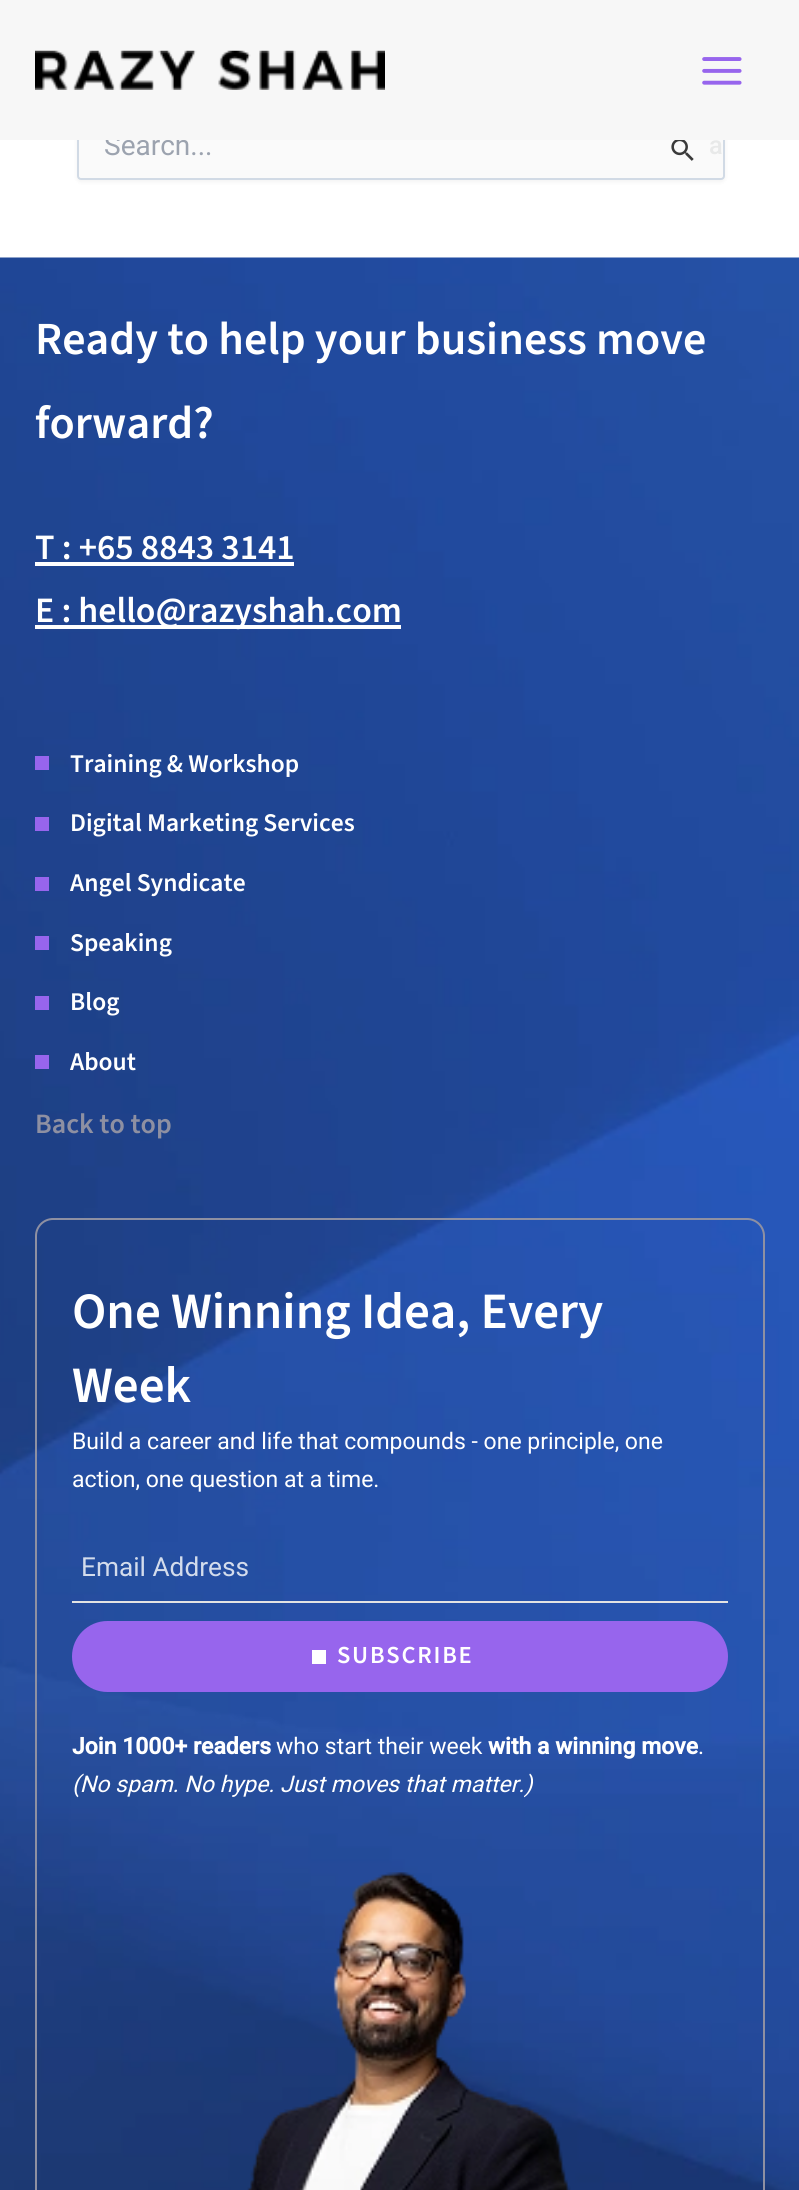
#include <cairo/cairo.h>
#include <math.h>
#include <stddef.h>

static cairo_t *cr;

static void use_color(int r, int g, int b) {
  cairo_set_source_rgb(cr, r / 255.0, g / 255.0, b / 255.0);
}

static void text(double x, double y, const char *s, const char *family, double size, int italic, int bold, int r, int g, int b) {
  cairo_select_font_face(cr, family, italic ? CAIRO_FONT_SLANT_ITALIC : CAIRO_FONT_SLANT_NORMAL,
    bold ? CAIRO_FONT_WEIGHT_BOLD : CAIRO_FONT_WEIGHT_NORMAL);
  cairo_set_font_size(cr, size);
  use_color(r, g, b);
  cairo_move_to(cr, x, y);
  cairo_show_text(cr, s);
}

static void spaced_text(double x, double y, const char *s, double letter, double word) {
  cairo_move_to(cr, x, y);
  while (*s) {
    char ch[5] = {0};
    int n = 0;
    do ch[n++] = *s++; while ((*s & 0xC0) == 0x80);
    cairo_show_text(cr, ch);
    cairo_rel_move_to(cr, letter + word * (*ch == ' '), 0);
  }
}

static void box(double x, double y, double w, double h, int r, int g, int b) {
  use_color(r, g, b);
  cairo_rectangle(cr, x, y, w, h);
  cairo_fill(cr);
}

static void round_rect(double x, double y, double w, double h, double r) {
  cairo_new_sub_path(cr);
  cairo_arc(cr, x + w - r, y + h - r, r, 0, M_PI / 2);
  cairo_arc(cr, x + r, y + h - r, r, M_PI / 2, M_PI);
  cairo_arc(cr, x + r, y + r, r, M_PI, 1.5 * M_PI);
  cairo_arc(cr, x + w - r, y + r, r, 1.5 * M_PI, 2 * M_PI);
  cairo_close_path(cr);
}

static void shadow(double x, double y, double w, double h, double r, double blur, double alpha) {
  cairo_push_group_with_content(cr, CAIRO_CONTENT_ALPHA);
  cairo_set_operator(cr, CAIRO_OPERATOR_SOURCE);
  for (int i = 15; i >= -15 && fmin(w, h) + blur * i / 3 > 0; i -= 2) {
    double e = blur * i / 6;
    cairo_set_source_rgba(cr, 0, 0, 0, alpha * erfc((i - 1) / 8.5) / 2);
    round_rect(x - e, y - e, w + 2 * e, h + 2 * e, fmax(0, fmin(r + e + blur * .6, fmin(w, h) / 2 + e)));
    cairo_fill(cr);
  }
  cairo_pattern_t *soft = cairo_pop_group(cr);
  cairo_mask(cr, soft);
  cairo_pattern_destroy(soft);
}

static void picture(const char *path, double x, double y, double w, double h) {
  cairo_surface_t *image = cairo_image_surface_create_from_png(path);
  cairo_save(cr);
  cairo_set_source_surface(cr, image, x, y);
  cairo_rectangle(cr, x, y, w, h);
  cairo_fill(cr);
  cairo_restore(cr);
  cairo_surface_destroy(image);
}

static void draw(void) {
  use_color(255, 255, 255);
  cairo_paint(cr);
  use_color(0, 0, 0);
  shadow(77, 112, 648, 70, 4, 2, 0.05);
  use_color(250, 250, 250);
  round_rect(78, 111, 646, 68, 3);
  cairo_fill_preserve(cr);
  use_color(209, 218, 229);
  cairo_stroke(cr);
  picture("img_03.png", 671, 140, 23, 21);
  picture("img_04.png", 0, 257, 799, 1933);
  box(35, 562, 259, 4, 255, 255, 255);
  box(35, 625, 366, 4, 255, 255, 255);
  box(35, 756, 14, 14, 151, 101, 237);
  box(35, 817, 14, 14, 151, 101, 237);
  box(35, 877, 14, 14, 151, 101, 237);
  box(35, 936, 14, 14, 151, 101, 237);
  box(35, 996, 14, 14, 151, 101, 237);
  box(35, 1055, 14, 14, 151, 101, 237);
  round_rect(36, 1219, 728, 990, 17);
  use_color(142, 144, 162);
  cairo_stroke(cr);
  box(72, 1601, 656, 2, 227, 227, 227);
  use_color(151, 101, 237);
  round_rect(72, 1621, 656, 71, 35.5);
  cairo_fill(cr);
  box(312, 1650, 14, 14, 255, 255, 255);
  picture("img_05.png", 247, 1872, 324, 318);
  text(104, 155, "Search...", "Roboto", 28, 0, 0, 156, 163, 175);
  box(0, 0, 799, 140, 247, 247, 247);
  picture("img_02.png", 702, 57, 40, 28);
  picture("img_01.png", 35, 50, 350, 40);
  text(709, 154, "a", "Roboto Medium", 25.5, 0, 0, 232, 233, 233);
  text(35, 354, "Ready to help your business move", "Source Sans 3 SemiBold", 46, 0, 0, 255, 255, 255);
  text(35, 438, "forward?", "Source Sans 3 SemiBold", 46, 0, 0, 255, 255, 255);
  text(35, 559, "T : +65 8843 3141", "Source Sans 3 SemiBold", 35.75, 0, 0, 255, 255, 255);
  text(35, 622, "E : hello@razyshah.com", "Source Sans 3 SemiBold", 35.75, 0, 0, 255, 255, 255);
  text(70, 772, "Training & Workshop", "Source Sans 3 SemiBold", 25.5, 0, 0, 255, 255, 255);
  text(70, 831, "Digital Marketing Services", "Source Sans 3 SemiBold", 25.5, 0, 0, 255, 255, 255);
  text(70, 891, "Angel Syndicate", "Source Sans 3 SemiBold", 25.5, 0, 0, 255, 255, 255);
  text(70, 951, "Speaking", "Source Sans 3 SemiBold", 25.5, 0, 0, 255, 255, 255);
  text(70, 1010, "Blog", "Source Sans 3 SemiBold", 25.5, 0, 0, 255, 255, 255);
  text(70, 1070, "About", "Source Sans 3 SemiBold", 25.5, 0, 0, 255, 255, 255);
  text(35, 1133, "Back to top", "Source Sans 3 SemiBold", 28, 0, 0, 142, 144, 162);
  text(72, 1328, "One Winning Idea, Every", "Source Sans 3 SemiBold", 51, 0, 0, 255, 255, 255);
  text(72, 1402, "Week", "Source Sans 3 SemiBold", 51, 0, 0, 255, 255, 255);
  text(72, 1449, "Build a career and life that compounds - one principle, one", "Roboto", 23, 0, 0, 255, 255, 255);
  text(72, 1487, "action, one question at a time.", "Roboto", 23, 0, 0, 255, 255, 255);
  text(81, 1576, "Email Address", "Roboto", 26.25, 0, 0, 211, 220, 236);
  cairo_select_font_face(cr, "Source Sans 3 SemiBold", CAIRO_FONT_SLANT_NORMAL, CAIRO_FONT_WEIGHT_NORMAL);
  cairo_set_font_size(cr, 24.5);
  use_color(255, 255, 255);
  spaced_text(337, 1663, "SUBSCRIBE", 1.75, 0);
  text(72, 1754, "Join 1000+ readers", "Roboto", 23, 0, 1, 255, 255, 255);
  text(276, 1754, "who start their week", "Roboto", 23, 0, 0, 255, 255, 255);
  text(488, 1754, "with a winning move", "Roboto", 23, 0, 1, 255, 255, 255);
  text(698, 1754, ".", "Roboto", 23, 0, 0, 255, 255, 255);
  text(72, 1792, "(No spam. No hype. Just moves that matter.)", "Roboto", 23, 1, 0, 255, 255, 255);
}

int main(void) {
  cairo_surface_t *surface = cairo_image_surface_create(CAIRO_FORMAT_RGB24, 799, 2190);
  cr = cairo_create(surface);
  cairo_font_options_t *options = cairo_font_options_create();
  cairo_font_options_set_hint_metrics(options, CAIRO_HINT_METRICS_OFF);
  cairo_font_options_set_hint_style(options, CAIRO_HINT_STYLE_NONE);
  cairo_set_font_options(cr, options);
  cairo_set_miter_limit(cr, 4);
  draw();
  cairo_surface_write_to_png(surface, "out.png");
  cairo_font_options_destroy(options);
  cairo_destroy(cr);
  cairo_surface_destroy(surface);
  return 0;
}
